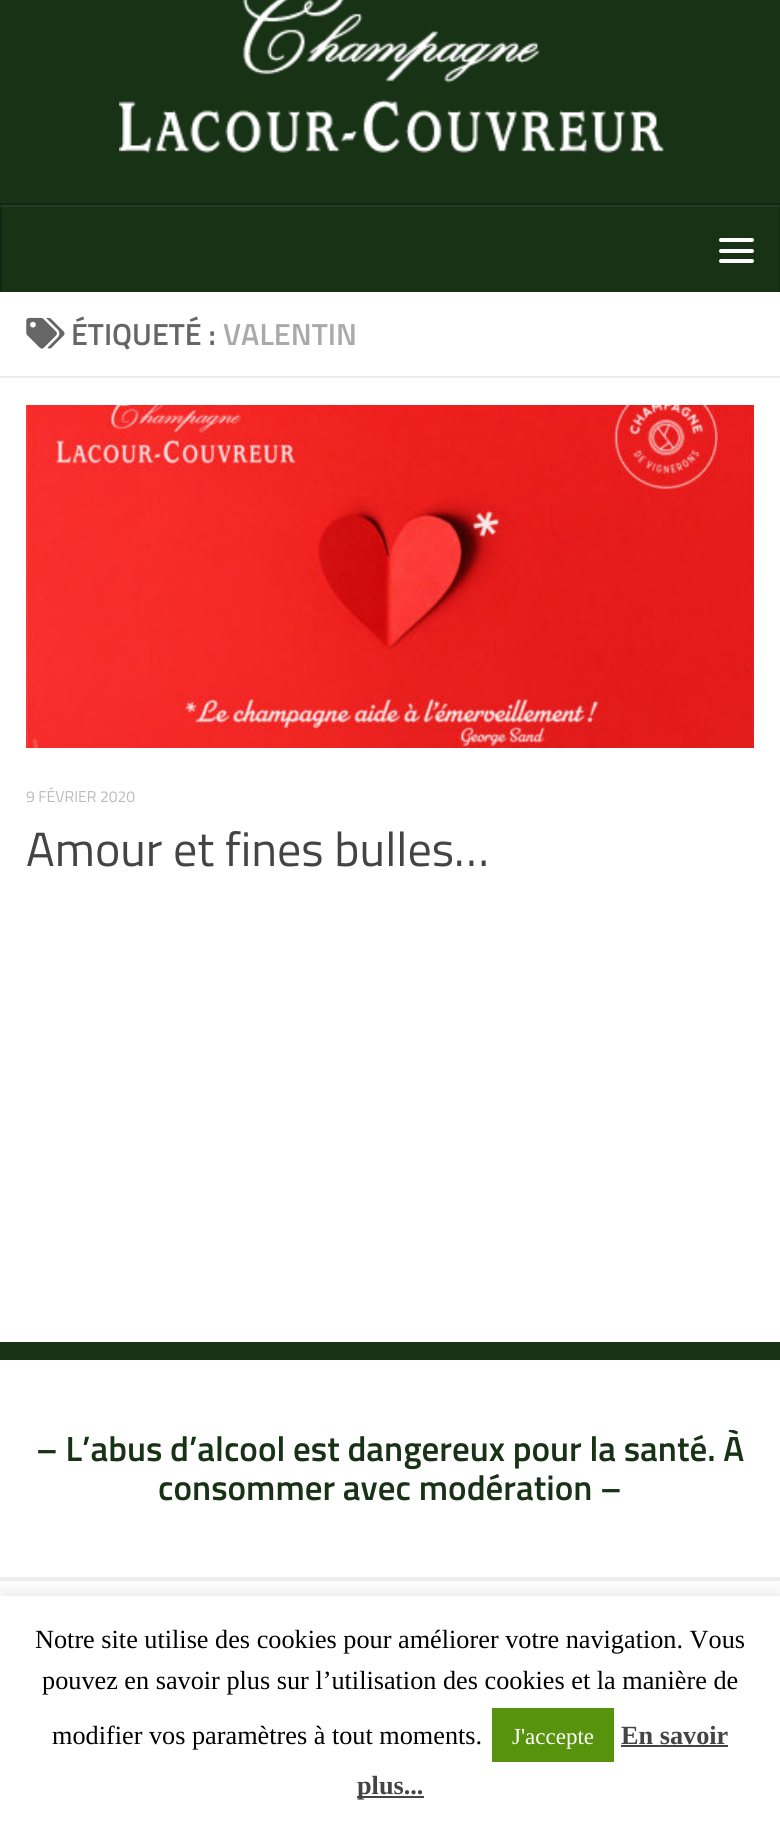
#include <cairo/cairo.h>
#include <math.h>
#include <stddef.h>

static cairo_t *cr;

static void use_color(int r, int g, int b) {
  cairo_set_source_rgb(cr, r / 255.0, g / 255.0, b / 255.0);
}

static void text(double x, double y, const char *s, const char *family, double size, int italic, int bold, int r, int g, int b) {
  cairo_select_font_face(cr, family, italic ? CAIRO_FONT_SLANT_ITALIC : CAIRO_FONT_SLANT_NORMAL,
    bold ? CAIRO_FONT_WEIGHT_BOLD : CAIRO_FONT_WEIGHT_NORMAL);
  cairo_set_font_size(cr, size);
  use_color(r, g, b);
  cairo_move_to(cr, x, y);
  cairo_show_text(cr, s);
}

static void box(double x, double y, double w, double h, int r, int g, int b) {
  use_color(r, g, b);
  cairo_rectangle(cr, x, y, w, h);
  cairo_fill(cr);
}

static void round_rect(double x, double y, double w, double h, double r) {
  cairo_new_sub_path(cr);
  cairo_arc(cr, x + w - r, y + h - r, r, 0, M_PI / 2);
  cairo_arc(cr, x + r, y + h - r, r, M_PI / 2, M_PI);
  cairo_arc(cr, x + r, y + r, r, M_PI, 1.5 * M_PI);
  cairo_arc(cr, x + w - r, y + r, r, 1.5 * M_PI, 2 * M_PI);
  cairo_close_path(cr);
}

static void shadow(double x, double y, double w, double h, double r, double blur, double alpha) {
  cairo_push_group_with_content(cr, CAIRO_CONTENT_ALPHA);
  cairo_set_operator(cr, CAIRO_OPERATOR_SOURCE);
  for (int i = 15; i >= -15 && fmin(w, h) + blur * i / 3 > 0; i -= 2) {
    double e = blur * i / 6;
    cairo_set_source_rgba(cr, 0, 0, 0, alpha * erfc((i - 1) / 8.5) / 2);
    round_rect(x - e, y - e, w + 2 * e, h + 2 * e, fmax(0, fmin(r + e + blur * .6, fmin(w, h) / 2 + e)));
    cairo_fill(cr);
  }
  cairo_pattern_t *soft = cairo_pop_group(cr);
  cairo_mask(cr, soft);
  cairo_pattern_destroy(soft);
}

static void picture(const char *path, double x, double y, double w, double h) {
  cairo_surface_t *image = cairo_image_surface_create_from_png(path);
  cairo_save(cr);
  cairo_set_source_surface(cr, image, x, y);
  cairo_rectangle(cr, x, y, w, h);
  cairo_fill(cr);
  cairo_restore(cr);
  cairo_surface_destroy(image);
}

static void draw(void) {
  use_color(24, 50, 22);
  cairo_paint(cr);
  box(0, 205, 780, 2, 36, 60, 34);
  picture("img_01.png", 119, 0, 545, 153);
  use_color(19, 40, 18);
  cairo_new_path(cr);
  cairo_move_to(cr, 0, 203);
  cairo_line_to(cr, 0, 205);
  cairo_line_to(cr, 780, 205);
  cairo_line_to(cr, 780, 291);
  cairo_line_to(cr, 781, 291);
  cairo_line_to(cr, 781, 203);
  cairo_close_path(cr);
  cairo_fill(cr);
  box(779, 205, 1, 87, 19, 40, 18);
  box(779, 205, 1, 2, 31, 51, 30);
  box(0, 205, 2, 87, 19, 40, 18);
  box(0, 205, 2, 2, 31, 51, 30);
  use_color(255, 255, 255);
  round_rect(719, 238, 35, 4, 2);
  cairo_fill(cr);
  round_rect(719, 249, 35, 4, 2);
  cairo_fill(cr);
  round_rect(719, 259, 35, 4, 2);
  cairo_fill(cr);
  box(0, 292, 780, 1050, 255, 255, 255);
  box(0, 376, 780, 2, 238, 238, 238);
  picture("img_02.png", 26, 317, 39, 32);
  picture("img_03.png", 26, 405, 728, 343);
  box(0, 1360, 780, 236, 255, 255, 255);
  box(0, 1577, 780, 4, 238, 238, 238);
  use_color(172, 171, 171);
  shadow(0, 1594, 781, 230, 0, 9, 0.3);
  box(0, 1596, 780, 228, 255, 255, 255);
  box(492, 1708, 122, 54, 88, 147, 14);
  box(621, 1745, 107, 2, 68, 68, 68);
  box(357, 1796, 67, 2, 68, 68, 68);
  text(71, 345, "ÉTIQUETÉ :", "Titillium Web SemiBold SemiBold", 30.5, 0, 0, 102, 102, 102);
  text(223, 345, "VALENTIN", "Titillium Web SemiBold SemiBold", 30.5, 0, 0, 170, 170, 170);
  text(26, 802, "9 FÉVRIER 2020", "Titillium Web", 15.75, 0, 0, 187, 187, 187);
  text(26, 866, "Amour et fines bulles…", "Titillium Web", 48.1, 0, 0, 68, 68, 68);
  cairo_save(cr);
  cairo_rectangle(cr, 0, 1430, 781, 129);
  cairo_clip(cr);
  text(36, 1461, "– L’abus d’alcool est dangereux pour la santé. À", "Titillium Web SemiBold SemiBold", 35, 0, 0, 24, 50, 22);
  cairo_restore(cr);
  text(158, 1500, "consommer avec modération –", "Titillium Web SemiBold SemiBold", 35, 0, 0, 24, 50, 22);
  text(35, 1648, "Notre site utilise des cookies pour améliorer votre navigation. Vous", "Liberation Serif", 26.25, 0, 0, 0, 0, 0);
  text(42, 1689, "pouvez en savoir plus sur l’utilisation des cookies et la manière de", "Liberation Serif", 26.25, 0, 0, 0, 0, 0);
  text(52, 1744, "modifier vos paramètres à tout moments.", "Liberation Serif", 26.25, 0, 0, 0, 0, 0);
  text(512, 1744, "J'accepte", "Liberation Serif", 23, 0, 0, 255, 255, 255);
  text(621, 1744, "En savoir", "Liberation Serif", 26.25, 0, 1, 68, 68, 68);
  text(357, 1794, "plus...", "Liberation Serif", 26.25, 0, 1, 68, 68, 68);
}

int main(void) {
  cairo_surface_t *surface = cairo_image_surface_create(CAIRO_FORMAT_RGB24, 780, 1824);
  cr = cairo_create(surface);
  cairo_font_options_t *options = cairo_font_options_create();
  cairo_font_options_set_hint_metrics(options, CAIRO_HINT_METRICS_OFF);
  cairo_font_options_set_hint_style(options, CAIRO_HINT_STYLE_NONE);
  cairo_set_font_options(cr, options);
  cairo_set_miter_limit(cr, 4);
  draw();
  cairo_surface_write_to_png(surface, "out.png");
  cairo_font_options_destroy(options);
  cairo_destroy(cr);
  cairo_surface_destroy(surface);
  return 0;
}
